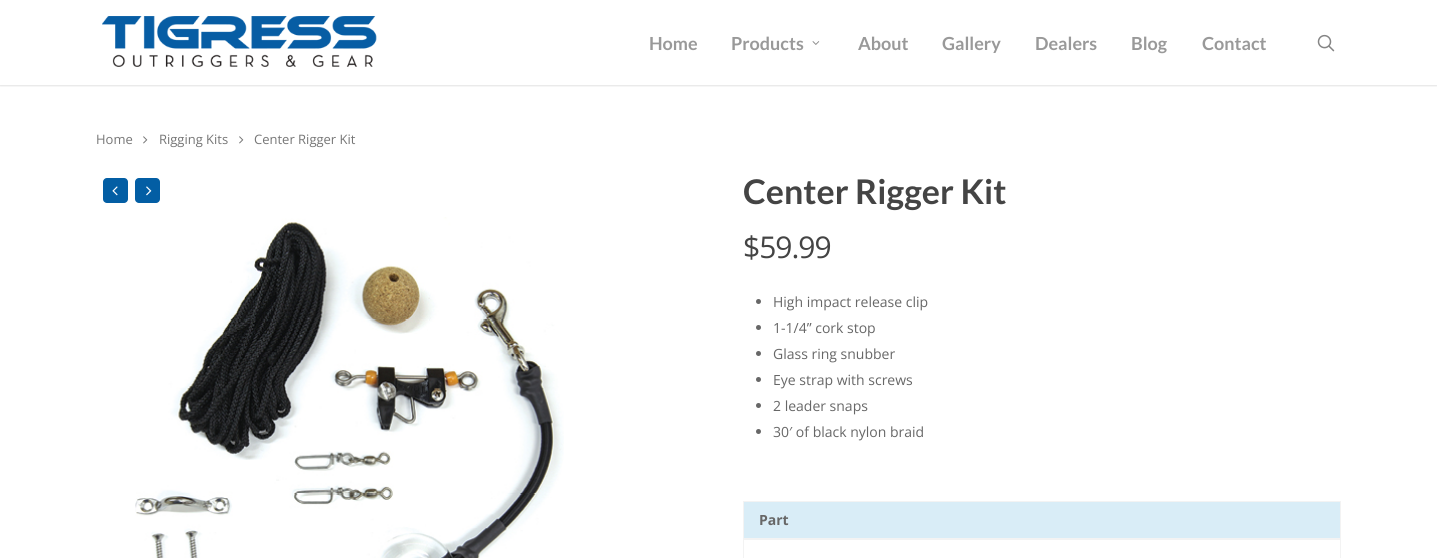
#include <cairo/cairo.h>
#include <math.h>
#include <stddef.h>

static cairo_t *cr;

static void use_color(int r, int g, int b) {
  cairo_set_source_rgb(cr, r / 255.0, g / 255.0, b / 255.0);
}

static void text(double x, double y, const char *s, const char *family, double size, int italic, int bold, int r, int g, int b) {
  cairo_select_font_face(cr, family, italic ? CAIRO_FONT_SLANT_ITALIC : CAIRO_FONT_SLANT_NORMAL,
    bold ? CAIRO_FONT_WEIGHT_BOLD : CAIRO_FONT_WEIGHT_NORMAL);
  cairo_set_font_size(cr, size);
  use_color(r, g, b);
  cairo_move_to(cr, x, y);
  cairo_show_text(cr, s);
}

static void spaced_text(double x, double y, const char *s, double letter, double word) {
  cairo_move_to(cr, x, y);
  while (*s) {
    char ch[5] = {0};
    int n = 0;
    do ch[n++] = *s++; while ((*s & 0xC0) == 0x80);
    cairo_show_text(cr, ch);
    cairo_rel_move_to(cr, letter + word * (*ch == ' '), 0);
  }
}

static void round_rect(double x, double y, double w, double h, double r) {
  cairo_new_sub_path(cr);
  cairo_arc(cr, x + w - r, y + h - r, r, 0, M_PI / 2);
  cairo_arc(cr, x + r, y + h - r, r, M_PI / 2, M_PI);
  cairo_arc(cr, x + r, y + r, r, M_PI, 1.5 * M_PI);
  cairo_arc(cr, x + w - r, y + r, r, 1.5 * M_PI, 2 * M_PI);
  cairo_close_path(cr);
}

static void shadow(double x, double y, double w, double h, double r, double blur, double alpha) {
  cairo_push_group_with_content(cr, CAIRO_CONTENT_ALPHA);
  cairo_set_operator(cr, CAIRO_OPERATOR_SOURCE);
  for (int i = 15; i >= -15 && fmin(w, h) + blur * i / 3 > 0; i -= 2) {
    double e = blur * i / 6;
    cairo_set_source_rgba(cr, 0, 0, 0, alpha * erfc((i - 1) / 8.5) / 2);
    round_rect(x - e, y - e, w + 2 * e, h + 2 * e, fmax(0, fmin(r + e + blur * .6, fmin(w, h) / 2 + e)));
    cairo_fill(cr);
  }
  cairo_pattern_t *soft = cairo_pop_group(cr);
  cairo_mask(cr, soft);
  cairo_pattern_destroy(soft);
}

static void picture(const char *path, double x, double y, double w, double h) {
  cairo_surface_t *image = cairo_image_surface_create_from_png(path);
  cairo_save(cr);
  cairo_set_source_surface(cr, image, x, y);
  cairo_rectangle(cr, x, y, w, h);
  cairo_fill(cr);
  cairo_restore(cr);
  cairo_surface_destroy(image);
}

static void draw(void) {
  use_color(255, 255, 255);
  cairo_paint(cr);
  cairo_save(cr);
  cairo_rectangle(cr, 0, 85, 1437, 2);
  cairo_clip(cr);
  use_color(0, 0, 0);
  shadow(0, 0, 1437, 85, 0, 1.5, 0.22);
  cairo_restore(cr);
  picture("img_01.png", 102, 16, 275, 51);
  picture("img_02.png", 812, 41, 8, 4);
  picture("img_03.png", 1317, 34, 18, 18);
  picture("img_04.png", 143, 136, 5, 8);
  picture("img_04.png", 239, 136, 5, 8);
  use_color(3, 94, 164);
  round_rect(103, 178, 25, 25, 4);
  cairo_fill(cr);
  picture("img_05.png", 112, 186, 6, 10);
  round_rect(135, 178, 25, 25, 4);
  cairo_fill(cr);
  picture("img_06.png", 146, 186, 6, 10);
  picture("img_07.png", 135, 217, 429, 341);
  use_color(103, 103, 103);
  cairo_arc(cr, 758.5, 301.5, 2.5, 0, 2 * M_PI);
  cairo_fill(cr);
  cairo_arc(cr, 758.5, 327.5, 2.5, 0, 2 * M_PI);
  cairo_fill(cr);
  cairo_arc(cr, 758.5, 353.5, 2.5, 0, 2 * M_PI);
  cairo_fill(cr);
  cairo_arc(cr, 758.5, 379.5, 2.5, 0, 2 * M_PI);
  cairo_fill(cr);
  cairo_arc(cr, 758.5, 405.5, 2.5, 0, 2 * M_PI);
  cairo_fill(cr);
  cairo_arc(cr, 758.5, 431.5, 2.5, 0, 2 * M_PI);
  cairo_fill(cr);
  use_color(217, 237, 247);
  cairo_rectangle(cr, 743.5, 501.5, 597, 37);
  cairo_fill_preserve(cr);
  use_color(243, 243, 243);
  cairo_set_line_width(cr, 1);
  cairo_stroke(cr);
  cairo_rectangle(cr, 743.5, 539.5, 597, 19);
  cairo_stroke(cr);
  text(649, 50, "Home", "Lato", 18, 0, 1, 153, 153, 153);
  text(731, 50, "Products", "Lato", 18, 0, 1, 153, 153, 153);
  text(858, 50, "About", "Lato", 18, 0, 1, 153, 153, 153);
  text(942, 50, "Gallery", "Lato", 18, 0, 1, 153, 153, 153);
  text(1035, 50, "Dealers", "Lato", 18, 0, 1, 153, 153, 153);
  text(1131, 50, "Blog", "Lato", 18, 0, 1, 153, 153, 153);
  text(1202, 50, "Contact", "Lato", 18, 0, 1, 153, 153, 153);
  text(96, 144, "Home", "Open Sans", 13, 0, 0, 118, 118, 118);
  text(159, 144, "Rigging Kits", "Open Sans", 13, 0, 0, 118, 118, 118);
  text(254, 144, "Center Rigger Kit", "Open Sans", 13, 0, 0, 118, 118, 118);
  text(743, 204, "Center Rigger Kit", "Lato", 34, 0, 1, 68, 68, 68);
  cairo_select_font_face(cr, "Open Sans", CAIRO_FONT_SLANT_NORMAL, CAIRO_FONT_WEIGHT_NORMAL);
  cairo_set_font_size(cr, 30);
  spaced_text(743, 258, "$59.99", -1, 0);
  text(773, 307, "High impact release clip", "Open Sans", 14, 0, 0, 103, 103, 103);
  text(773, 333, "1-1/4” cork stop", "Open Sans", 14, 0, 0, 103, 103, 103);
  text(773, 359, "Glass ring snubber", "Open Sans", 14, 0, 0, 103, 103, 103);
  text(773, 385, "Eye strap with screws", "Open Sans", 14, 0, 0, 103, 103, 103);
  text(773, 411, "2 leader snaps", "Open Sans", 14, 0, 0, 103, 103, 103);
  text(773, 437, "30′ of black nylon braid", "Open Sans", 14, 0, 0, 103, 103, 103);
  text(759, 525, "Part", "Open Sans", 14, 0, 1, 103, 103, 103);
}

int main(void) {
  cairo_surface_t *surface = cairo_image_surface_create(CAIRO_FORMAT_RGB24, 1437, 558);
  cr = cairo_create(surface);
  cairo_font_options_t *options = cairo_font_options_create();
  cairo_font_options_set_hint_metrics(options, CAIRO_HINT_METRICS_OFF);
  cairo_font_options_set_hint_style(options, CAIRO_HINT_STYLE_NONE);
  cairo_set_font_options(cr, options);
  cairo_set_miter_limit(cr, 4);
  draw();
  cairo_surface_write_to_png(surface, "out.png");
  cairo_font_options_destroy(options);
  cairo_destroy(cr);
  cairo_surface_destroy(surface);
  return 0;
}
